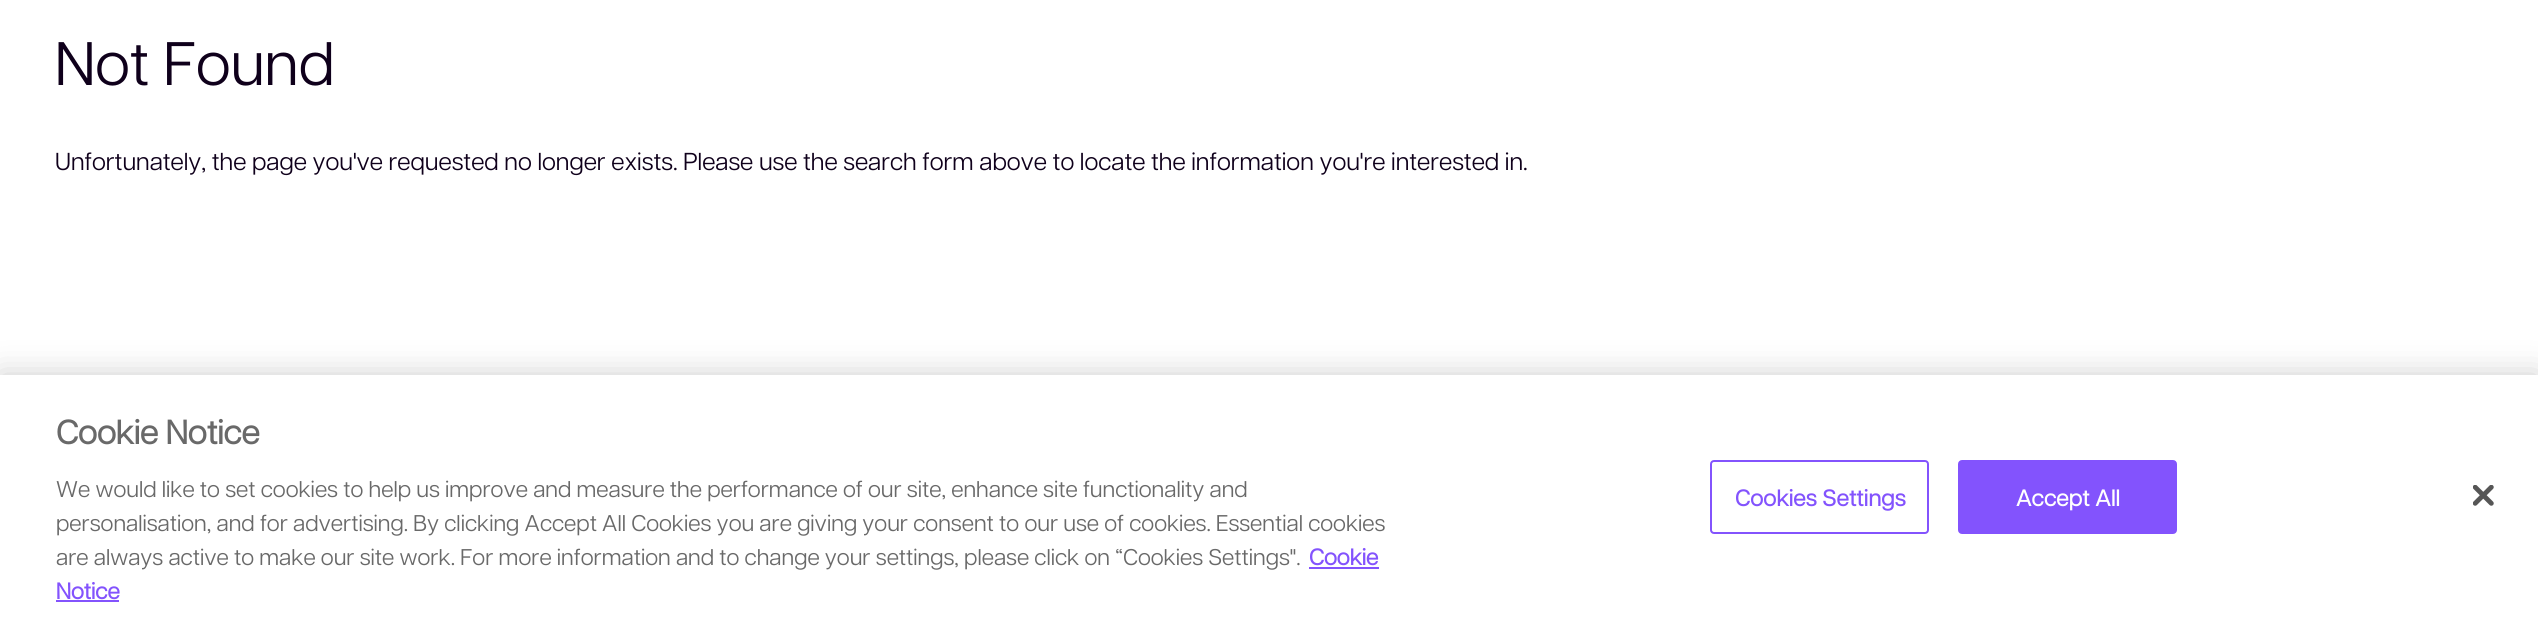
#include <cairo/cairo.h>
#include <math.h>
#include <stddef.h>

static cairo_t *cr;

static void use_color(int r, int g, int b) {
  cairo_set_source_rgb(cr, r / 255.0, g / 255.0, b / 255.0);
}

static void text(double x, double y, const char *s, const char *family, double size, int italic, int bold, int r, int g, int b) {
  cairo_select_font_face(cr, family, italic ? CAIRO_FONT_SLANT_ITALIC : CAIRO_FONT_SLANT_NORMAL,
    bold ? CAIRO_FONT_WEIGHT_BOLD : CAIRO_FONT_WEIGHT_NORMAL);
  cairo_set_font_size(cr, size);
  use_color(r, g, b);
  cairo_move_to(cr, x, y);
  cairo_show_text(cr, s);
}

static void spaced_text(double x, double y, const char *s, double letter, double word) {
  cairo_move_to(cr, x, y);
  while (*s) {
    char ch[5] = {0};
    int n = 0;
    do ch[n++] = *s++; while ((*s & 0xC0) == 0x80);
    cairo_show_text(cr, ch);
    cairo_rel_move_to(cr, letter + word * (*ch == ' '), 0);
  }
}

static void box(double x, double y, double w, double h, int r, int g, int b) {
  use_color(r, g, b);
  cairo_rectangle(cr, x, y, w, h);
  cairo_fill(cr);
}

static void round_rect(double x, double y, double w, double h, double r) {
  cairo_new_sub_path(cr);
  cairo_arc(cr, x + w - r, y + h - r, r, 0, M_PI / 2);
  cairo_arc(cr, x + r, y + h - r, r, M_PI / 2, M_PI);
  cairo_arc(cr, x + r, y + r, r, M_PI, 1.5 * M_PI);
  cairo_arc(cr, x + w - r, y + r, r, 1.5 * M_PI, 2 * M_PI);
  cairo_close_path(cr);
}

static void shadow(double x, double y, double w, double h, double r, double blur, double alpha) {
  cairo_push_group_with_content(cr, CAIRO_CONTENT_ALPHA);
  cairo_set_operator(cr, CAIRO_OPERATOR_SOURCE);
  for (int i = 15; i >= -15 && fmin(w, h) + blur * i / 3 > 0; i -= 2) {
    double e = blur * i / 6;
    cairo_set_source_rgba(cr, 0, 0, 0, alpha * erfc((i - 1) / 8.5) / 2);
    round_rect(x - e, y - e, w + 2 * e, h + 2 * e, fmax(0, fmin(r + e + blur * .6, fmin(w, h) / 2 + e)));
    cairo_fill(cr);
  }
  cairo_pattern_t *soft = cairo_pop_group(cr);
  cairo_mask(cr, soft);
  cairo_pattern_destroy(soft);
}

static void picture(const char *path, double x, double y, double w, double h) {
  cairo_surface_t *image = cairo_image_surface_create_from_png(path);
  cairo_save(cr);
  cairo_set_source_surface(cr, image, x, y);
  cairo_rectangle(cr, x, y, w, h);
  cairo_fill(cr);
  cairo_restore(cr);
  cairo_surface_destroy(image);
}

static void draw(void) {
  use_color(255, 255, 255);
  cairo_paint(cr);
  use_color(0, 0, 0);
  shadow(0, 375, 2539, 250, 0, 16, 0.2);
  box(0, 375, 2538, 249, 255, 255, 255);
  box(1309, 567, 70, 2, 131, 83, 253);
  box(56, 600, 63, 2, 131, 83, 253);
  round_rect(1711, 461, 217, 72, 3);
  cairo_stroke(cr);
  round_rect(1959, 461, 217, 72, 3);
  cairo_fill_preserve(cr);
  cairo_stroke(cr);
  picture("img_01.png", 2473, 485, 21, 21);
  text(55, 85, "Not Found", "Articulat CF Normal", 61.25, 0, 0, 15, 0, 27);
  text(55, 170, "Unfortunately, the page you've requested no longer exists. Please use the search form above to locate the information you're interested in.", "Articulat CF Normal", 24.5, 0, 0, 15, 0, 27);
  text(56, 444, "Cookie Notice", "Articulat CF Normal", 33.5, 0, 1, 105, 105, 105);
  text(56, 497, "We would like to set cookies to help us improve and measure the performance of our site, enhance site functionality and", "Articulat CF Normal", 22.75, 0, 0, 105, 105, 105);
  text(56, 531, "personalisation, and for advertising. By clicking Accept All Cookies you are giving your consent to our use of cookies. Essential cookies", "Articulat CF Normal", 22.75, 0, 0, 105, 105, 105);
  text(56, 565, "are always active to make our site work. For more information and to change your settings, please click on “Cookies Settings\".", "Articulat CF Normal", 22.75, 0, 0, 105, 105, 105);
  text(1309, 565, "Cookie", "Articulat CF Normal", 22.75, 0, 1, 131, 83, 253);
  text(56, 599, "Notice", "Articulat CF Normal", 22.75, 0, 1, 131, 83, 253);
  spaced_text(1735, 506, "Cookies Settings", 0.25, 0);
  use_color(255, 255, 255);
  spaced_text(2016, 506, "Accept All", 0.25, 0);
}

int main(void) {
  cairo_surface_t *surface = cairo_image_surface_create(CAIRO_FORMAT_RGB24, 2538, 624);
  cr = cairo_create(surface);
  cairo_font_options_t *options = cairo_font_options_create();
  cairo_font_options_set_hint_metrics(options, CAIRO_HINT_METRICS_OFF);
  cairo_font_options_set_hint_style(options, CAIRO_HINT_STYLE_NONE);
  cairo_set_font_options(cr, options);
  cairo_set_miter_limit(cr, 4);
  draw();
  cairo_surface_write_to_png(surface, "out.png");
  cairo_font_options_destroy(options);
  cairo_destroy(cr);
  cairo_surface_destroy(surface);
  return 0;
}
